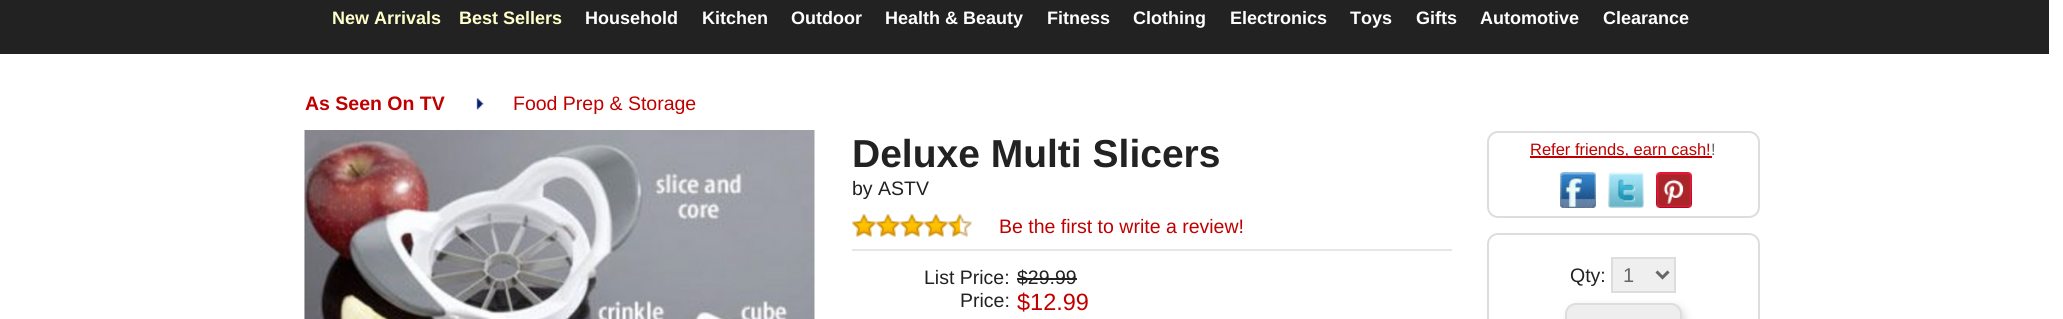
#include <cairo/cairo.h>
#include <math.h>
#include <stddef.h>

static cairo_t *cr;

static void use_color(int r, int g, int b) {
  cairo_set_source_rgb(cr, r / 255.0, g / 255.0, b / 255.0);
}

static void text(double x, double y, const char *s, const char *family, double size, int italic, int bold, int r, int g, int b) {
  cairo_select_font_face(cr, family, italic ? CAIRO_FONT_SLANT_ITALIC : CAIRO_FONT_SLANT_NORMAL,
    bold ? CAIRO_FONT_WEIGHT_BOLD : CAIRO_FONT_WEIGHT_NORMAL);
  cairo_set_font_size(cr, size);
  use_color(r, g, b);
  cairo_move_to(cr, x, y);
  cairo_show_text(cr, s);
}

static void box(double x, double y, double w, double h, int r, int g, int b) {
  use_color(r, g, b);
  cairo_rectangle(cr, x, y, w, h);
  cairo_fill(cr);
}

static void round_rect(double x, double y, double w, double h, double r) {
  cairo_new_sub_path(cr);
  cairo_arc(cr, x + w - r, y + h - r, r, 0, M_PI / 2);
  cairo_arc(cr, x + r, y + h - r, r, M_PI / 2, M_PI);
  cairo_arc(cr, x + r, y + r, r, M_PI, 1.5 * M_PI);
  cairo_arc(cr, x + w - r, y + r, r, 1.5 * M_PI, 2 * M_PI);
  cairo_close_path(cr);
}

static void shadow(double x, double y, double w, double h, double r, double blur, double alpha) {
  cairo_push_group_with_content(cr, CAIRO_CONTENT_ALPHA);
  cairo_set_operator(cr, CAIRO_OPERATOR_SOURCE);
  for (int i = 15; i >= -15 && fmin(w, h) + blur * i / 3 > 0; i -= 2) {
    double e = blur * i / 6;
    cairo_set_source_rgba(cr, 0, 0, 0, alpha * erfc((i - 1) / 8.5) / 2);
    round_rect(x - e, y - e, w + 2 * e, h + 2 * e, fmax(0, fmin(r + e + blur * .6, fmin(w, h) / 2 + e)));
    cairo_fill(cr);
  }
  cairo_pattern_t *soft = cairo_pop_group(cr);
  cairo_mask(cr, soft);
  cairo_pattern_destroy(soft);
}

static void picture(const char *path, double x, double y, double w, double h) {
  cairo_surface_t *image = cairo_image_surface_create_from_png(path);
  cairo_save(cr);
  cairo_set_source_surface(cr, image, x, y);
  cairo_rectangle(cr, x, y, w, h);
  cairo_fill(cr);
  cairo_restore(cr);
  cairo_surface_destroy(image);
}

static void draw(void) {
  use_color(255, 255, 255);
  cairo_paint(cr);
  box(0, 0, 2049, 54, 34, 34, 34);
  picture("img_01.png", 476, 98, 8, 12);
  picture("img_02.png", 304, 130, 511, 189);
  picture("img_03.png", 852, 214, 120, 23);
  box(852, 249, 600, 2, 230, 230, 230);
  box(1017, 278, 60, 2, 34, 34, 34);
  round_rect(1488, 132, 271, 85, 10);
  use_color(221, 221, 221);
  cairo_stroke(cr);
  box(1530, 156, 182, 2, 192, 0, 0);
  picture("img_04.png", 1560, 172, 36, 36);
  picture("img_05.png", 1608, 172, 36, 36);
  picture("img_06.png", 1656, 172, 36, 36);
  round_rect(1488, 234, 271, 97, 10);
  use_color(221, 221, 221);
  cairo_stroke(cr);
  use_color(239, 239, 239);
  cairo_rectangle(cr, 1612, 258, 63, 34);
  cairo_fill_preserve(cr);
  use_color(221, 221, 221);
  cairo_stroke(cr);
  cairo_new_path(cr);
  cairo_move_to(cr, 1656.5, 271.5);
  cairo_line_to(cr, 1662.5, 277.5);
  cairo_line_to(cr, 1668.5, 271.5);
  use_color(102, 102, 102);
  cairo_set_line_width(cr, 3);
  cairo_stroke(cr);
  use_color(221, 221, 221);
  shadow(1568, 306, 117, 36, 11, 4, 1);
  use_color(238, 238, 238);
  round_rect(1566, 304, 115, 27, 10);
  cairo_fill_preserve(cr);
  use_color(221, 221, 221);
  cairo_set_line_width(cr, 2);
  cairo_stroke(cr);
  text(332, 24, "New Arrivals", "Liberation Sans", 18, 0, 1, 255, 255, 204);
  text(459, 24, "Best Sellers", "Liberation Sans", 18, 0, 1, 255, 255, 204);
  text(585, 24, "Household", "Liberation Sans", 18, 0, 1, 255, 255, 255);
  text(702, 24, "Kitchen", "Liberation Sans", 18, 0, 1, 255, 255, 255);
  text(791, 24, "Outdoor", "Liberation Sans", 18, 0, 1, 255, 255, 255);
  text(885, 24, "Health & Beauty", "Liberation Sans", 18, 0, 1, 255, 255, 255);
  text(1047, 24, "Fitness", "Liberation Sans", 18, 0, 1, 255, 255, 255);
  text(1133, 24, "Clothing", "Liberation Sans", 18, 0, 1, 255, 255, 255);
  text(1230, 24, "Electronics", "Liberation Sans", 18, 0, 1, 255, 255, 255);
  text(1350, 24, "Toys", "Liberation Sans", 18, 0, 1, 255, 255, 255);
  text(1416, 24, "Gifts", "Liberation Sans", 18, 0, 1, 255, 255, 255);
  text(1480, 24, "Automotive", "Liberation Sans", 18, 0, 1, 255, 255, 255);
  text(1603, 24, "Clearance", "Liberation Sans", 18, 0, 1, 255, 255, 255);
  text(305, 110, "As Seen On TV", "Liberation Sans", 19.5, 0, 1, 192, 0, 0);
  text(513, 110, "Food Prep & Storage", "Liberation Sans", 19.5, 0, 0, 192, 0, 0);
  text(852, 167, "Deluxe Multi Slicers", "Liberation Sans", 39, 0, 1, 34, 34, 34);
  text(852, 195, "by ASTV", "Liberation Sans", 19.5, 0, 0, 34, 34, 34);
  text(999, 233, "Be the first to write a review!", "Liberation Sans", 19.5, 0, 0, 192, 0, 0);
  text(924, 284, "List Price:", "Liberation Sans", 19.5, 0, 0, 34, 34, 34);
  text(1017, 284, "$29.99", "Liberation Sans", 19.5, 0, 0, 34, 34, 34);
  text(960, 307, "Price:", "Liberation Sans", 19.5, 0, 0, 34, 34, 34);
  text(1017, 310, "$12.99", "Liberation Sans", 23.5, 0, 0, 192, 0, 0);
  text(1530, 155, "Refer friends, earn cash!", "Liberation Sans", 16.5, 0, 0, 192, 0, 0);
  text(1711, 155, "!", "Liberation Sans", 16.5, 0, 0, 102, 102, 102);
  text(1570, 282, "Qty:", "Liberation Sans", 19.5, 0, 0, 34, 34, 34);
  text(1623, 282, "1", "Liberation Sans", 20, 0, 0, 102, 102, 102);
}

int main(void) {
  cairo_surface_t *surface = cairo_image_surface_create(CAIRO_FORMAT_RGB24, 2063, 319);
  cr = cairo_create(surface);
  cairo_font_options_t *options = cairo_font_options_create();
  cairo_font_options_set_hint_metrics(options, CAIRO_HINT_METRICS_OFF);
  cairo_font_options_set_hint_style(options, CAIRO_HINT_STYLE_NONE);
  cairo_set_font_options(cr, options);
  cairo_set_miter_limit(cr, 4);
  draw();
  cairo_surface_write_to_png(surface, "out.png");
  cairo_font_options_destroy(options);
  cairo_destroy(cr);
  cairo_surface_destroy(surface);
  return 0;
}
